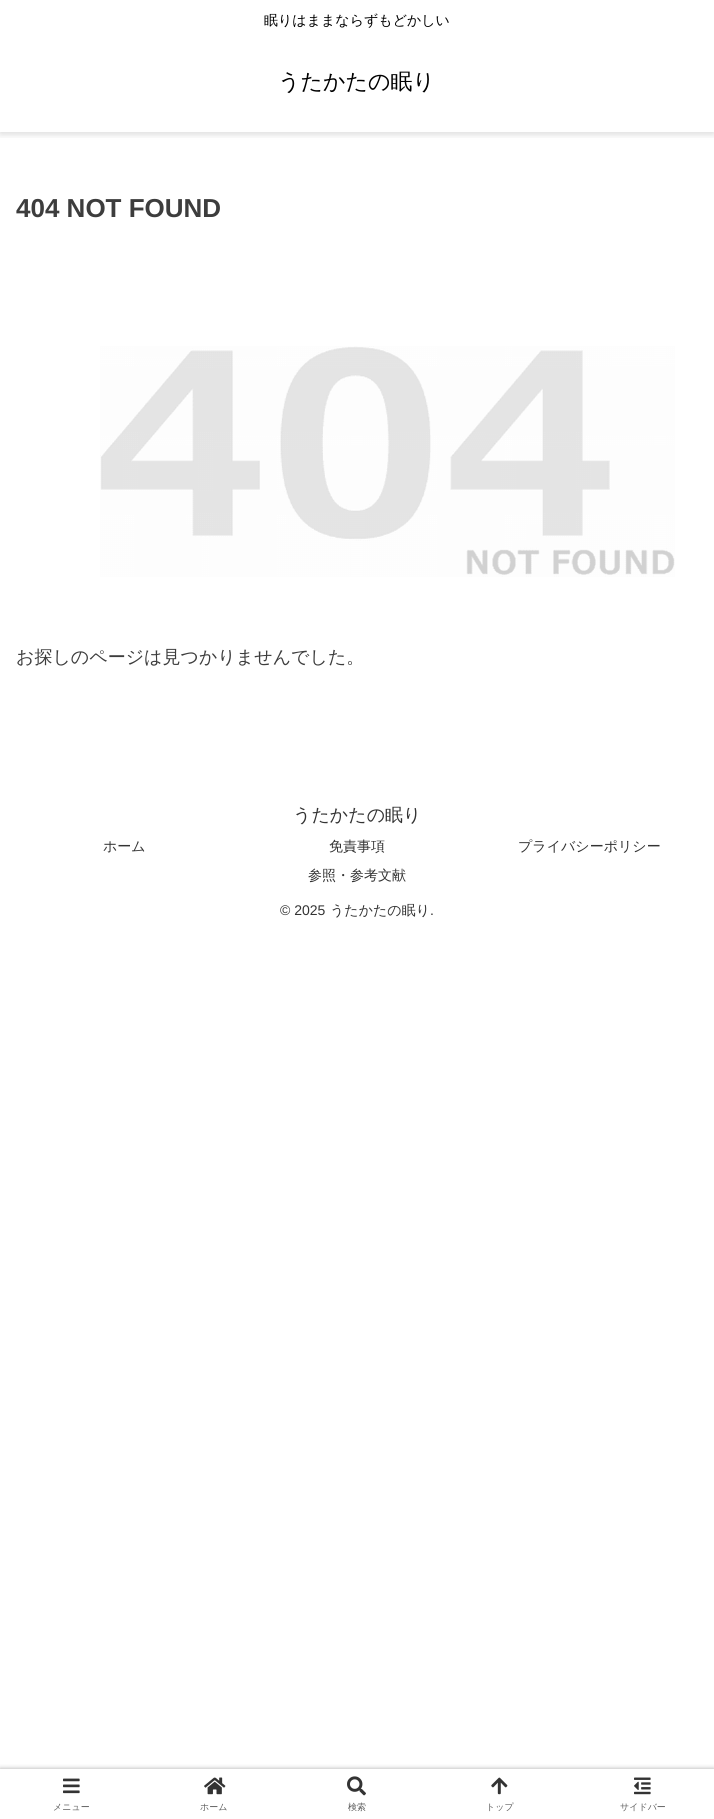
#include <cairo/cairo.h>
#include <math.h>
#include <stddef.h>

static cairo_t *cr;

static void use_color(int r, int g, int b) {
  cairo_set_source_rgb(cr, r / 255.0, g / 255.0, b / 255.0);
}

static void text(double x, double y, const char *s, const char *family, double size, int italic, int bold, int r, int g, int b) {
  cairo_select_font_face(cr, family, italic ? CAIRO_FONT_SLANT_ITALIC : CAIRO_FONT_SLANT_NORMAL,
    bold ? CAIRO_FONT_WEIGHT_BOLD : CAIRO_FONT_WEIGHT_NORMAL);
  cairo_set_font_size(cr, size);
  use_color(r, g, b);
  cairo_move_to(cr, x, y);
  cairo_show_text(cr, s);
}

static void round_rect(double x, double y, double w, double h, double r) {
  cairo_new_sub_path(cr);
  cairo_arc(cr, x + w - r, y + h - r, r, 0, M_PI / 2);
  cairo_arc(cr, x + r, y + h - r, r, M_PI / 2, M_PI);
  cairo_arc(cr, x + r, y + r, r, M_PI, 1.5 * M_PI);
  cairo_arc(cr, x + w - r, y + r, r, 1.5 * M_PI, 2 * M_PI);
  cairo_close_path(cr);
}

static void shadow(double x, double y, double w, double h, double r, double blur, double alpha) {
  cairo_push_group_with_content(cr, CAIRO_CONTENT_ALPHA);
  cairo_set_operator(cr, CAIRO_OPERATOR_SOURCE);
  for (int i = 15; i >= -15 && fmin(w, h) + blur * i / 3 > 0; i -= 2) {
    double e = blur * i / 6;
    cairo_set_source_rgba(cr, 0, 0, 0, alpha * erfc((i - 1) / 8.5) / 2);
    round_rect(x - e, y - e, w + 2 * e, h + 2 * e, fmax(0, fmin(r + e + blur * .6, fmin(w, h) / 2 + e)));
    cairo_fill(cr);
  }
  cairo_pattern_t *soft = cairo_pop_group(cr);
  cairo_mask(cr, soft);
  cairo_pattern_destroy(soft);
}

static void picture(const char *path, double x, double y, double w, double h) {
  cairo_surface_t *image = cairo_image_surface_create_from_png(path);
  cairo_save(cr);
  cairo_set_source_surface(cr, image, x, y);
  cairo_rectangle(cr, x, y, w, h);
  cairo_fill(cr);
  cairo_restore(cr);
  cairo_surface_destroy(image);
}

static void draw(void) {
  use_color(255, 255, 255);
  cairo_paint(cr);
  cairo_save(cr);
  cairo_rectangle(cr, 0, 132, 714, 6);
  cairo_clip(cr);
  use_color(0, 0, 0);
  shadow(0, 2, 714, 132, 0, 4, 0.15);
  cairo_restore(cr);
  picture("img_01.png", 100, 346, 575, 231);
  cairo_save(cr);
  cairo_rectangle(cr, 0, 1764, 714, 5);
  cairo_clip(cr);
  use_color(169, 169, 169);
  shadow(0, 1769, 714, 50, 0, 2.5, 1);
  cairo_restore(cr);
  picture("img_02.png", 63, 1778, 17, 16);
  picture("img_03.png", 204, 1777, 22, 18);
  picture("img_04.png", 347, 1776, 19, 20);
  picture("img_05.png", 491, 1777, 17, 18);
  picture("img_06.png", 634, 1777, 17, 18);
  text(264, 25, "眠りはままならずもどかしい", "WenQuanYi Zen Hei Medium", 14, 0, 0, 0, 0, 0);
  text(278, 89, "うたかたの眠り", "WenQuanYi Zen Hei Medium", 22, 0, 0, 0, 0, 0);
  text(16, 217, "404 NOT FOUND", "Liberation Sans", 26, 0, 1, 61, 61, 61);
  text(16, 663, "お探しのページは見つかりませんでした。", "WenQuanYi Zen Hei Medium", 18, 0, 0, 61, 61, 61);
  text(293, 821, "うたかたの眠り", "WenQuanYi Zen Hei Medium", 18, 0, 0, 51, 51, 51);
  text(103, 851, "ホーム", "WenQuanYi Zen Hei Medium", 14, 0, 0, 51, 51, 51);
  text(329, 851, "免責事項", "WenQuanYi Zen Hei Medium", 14, 0, 0, 51, 51, 51);
  text(518, 851, "プライバシーポリシー", "WenQuanYi Zen Hei Medium", 14, 0, 0, 51, 51, 51);
  text(308, 880, "参照・参考文献", "WenQuanYi Zen Hei Medium", 14, 0, 0, 51, 51, 51);
  text(280, 915, "© 2025", "Liberation Sans", 14, 0, 0, 51, 51, 51);
  text(330, 915, "うたかたの眠り", "WenQuanYi Zen Hei Medium", 14, 0, 0, 51, 51, 51);
  text(430, 915, ".", "Liberation Sans", 14, 0, 0, 51, 51, 51);
  text(53, 1810, "メニュー", "WenQuanYi Zen Hei Medium", 9, 0, 0, 92, 92, 92);
  text(200, 1810, "ホーム", "WenQuanYi Zen Hei Medium", 9, 0, 0, 92, 92, 92);
  text(348, 1810, "検索", "WenQuanYi Zen Hei Medium", 9, 0, 0, 92, 92, 92);
  text(486, 1810, "トップ", "WenQuanYi Zen Hei Medium", 9, 0, 0, 92, 92, 92);
  text(620, 1810, "サイドバー", "WenQuanYi Zen Hei Medium", 9, 0, 0, 92, 92, 92);
}

int main(void) {
  cairo_surface_t *surface = cairo_image_surface_create(CAIRO_FORMAT_RGB24, 714, 1819);
  cr = cairo_create(surface);
  cairo_font_options_t *options = cairo_font_options_create();
  cairo_font_options_set_hint_metrics(options, CAIRO_HINT_METRICS_OFF);
  cairo_font_options_set_hint_style(options, CAIRO_HINT_STYLE_NONE);
  cairo_set_font_options(cr, options);
  cairo_set_miter_limit(cr, 4);
  draw();
  cairo_surface_write_to_png(surface, "out.png");
  cairo_font_options_destroy(options);
  cairo_destroy(cr);
  cairo_surface_destroy(surface);
  return 0;
}
